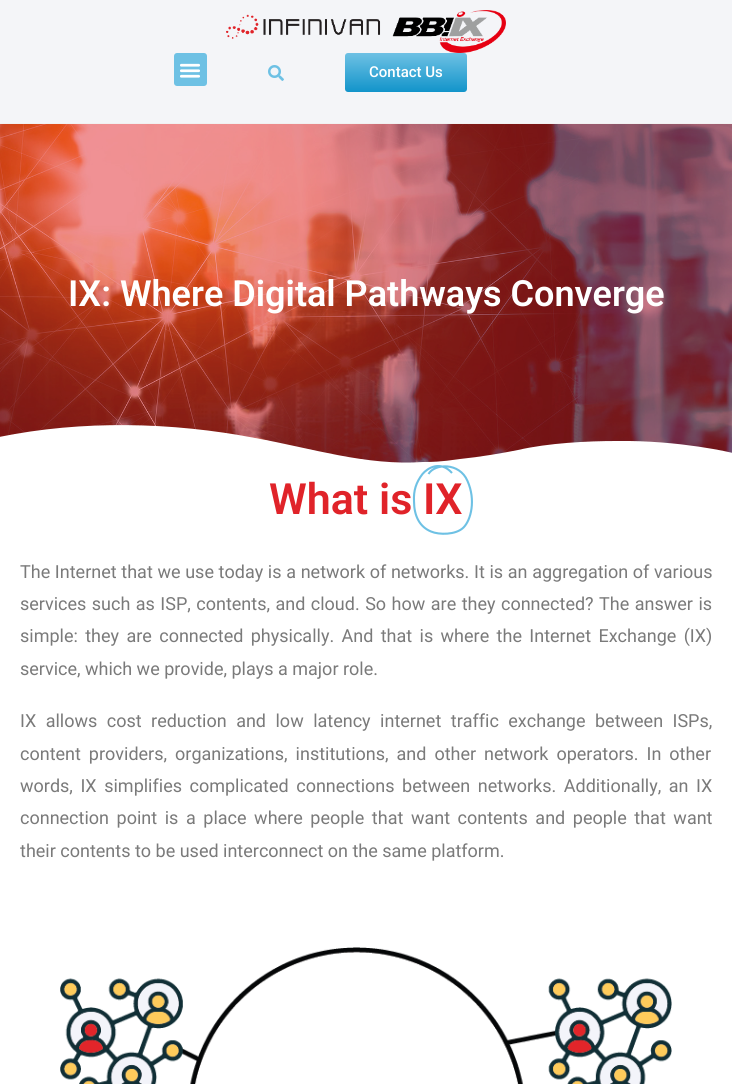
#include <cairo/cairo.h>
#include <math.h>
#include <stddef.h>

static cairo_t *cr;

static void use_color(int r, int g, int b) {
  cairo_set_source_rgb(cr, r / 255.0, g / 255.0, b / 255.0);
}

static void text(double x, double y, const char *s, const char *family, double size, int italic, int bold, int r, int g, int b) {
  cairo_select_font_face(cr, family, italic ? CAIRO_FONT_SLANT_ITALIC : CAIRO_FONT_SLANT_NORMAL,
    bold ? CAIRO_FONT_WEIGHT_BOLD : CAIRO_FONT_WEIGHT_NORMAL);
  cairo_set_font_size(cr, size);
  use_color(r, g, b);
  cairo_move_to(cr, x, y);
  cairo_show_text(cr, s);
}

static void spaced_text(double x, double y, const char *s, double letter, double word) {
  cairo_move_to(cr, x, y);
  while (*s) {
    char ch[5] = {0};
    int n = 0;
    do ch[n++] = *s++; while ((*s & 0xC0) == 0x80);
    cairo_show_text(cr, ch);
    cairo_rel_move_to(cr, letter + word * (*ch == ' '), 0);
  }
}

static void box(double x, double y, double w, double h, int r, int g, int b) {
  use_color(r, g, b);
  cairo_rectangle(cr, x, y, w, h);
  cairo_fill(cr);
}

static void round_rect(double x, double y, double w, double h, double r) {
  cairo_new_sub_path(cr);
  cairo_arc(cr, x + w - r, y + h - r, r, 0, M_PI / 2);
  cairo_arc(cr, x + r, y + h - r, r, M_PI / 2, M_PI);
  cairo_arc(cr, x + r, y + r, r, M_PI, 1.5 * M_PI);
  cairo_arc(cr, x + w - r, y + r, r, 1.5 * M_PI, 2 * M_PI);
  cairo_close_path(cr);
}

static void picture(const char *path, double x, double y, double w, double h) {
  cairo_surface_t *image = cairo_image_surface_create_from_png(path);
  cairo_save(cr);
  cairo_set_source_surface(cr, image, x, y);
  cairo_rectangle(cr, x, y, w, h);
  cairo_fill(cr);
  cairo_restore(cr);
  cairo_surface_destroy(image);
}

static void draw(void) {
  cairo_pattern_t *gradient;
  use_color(255, 255, 255);
  cairo_paint(cr);
  box(0, 123, 732, 1, 241, 241, 241);
  box(0, 0, 732, 123, 244, 245, 248);
  picture("img_01.png", 226, 10, 280, 43);
  use_color(110, 193, 228);
  round_rect(174, 53, 33, 33, 3);
  cairo_fill(cr);
  picture("img_02.png", 180, 63, 20, 15);
  picture("img_03.png", 268, 65, 16, 16);
  gradient = cairo_pattern_create_linear(406, 53, 406, 92);
  cairo_pattern_add_color_stop_rgba(gradient, 0, 0.431, 0.757, 0.894, 1);
  cairo_pattern_add_color_stop_rgba(gradient, 1, 0.071, 0.58, 0.792, 1);
  cairo_set_source(cr, gradient);
  cairo_pattern_destroy(gradient);
  round_rect(345, 53, 122, 39, 3);
  cairo_fill(cr);
  picture("img_04.png", 0, 124, 732, 339);
  use_color(255, 255, 255);
  cairo_new_path(cr);
  cairo_move_to(cr, 423, 462);
  cairo_curve_to(cr, 366, 466, 311, 448, 255, 438);
  cairo_curve_to(cr, 172, 422, 82, 420, -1, 437);
  cairo_line_to(cr, -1, 465);
  cairo_line_to(cr, 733, 465);
  cairo_line_to(cr, 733, 453);
  cairo_curve_to(cr, 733, 453, 680, 440, 616, 441);
  cairo_curve_to(cr, 588, 441, 548, 443, 518, 450);
  cairo_curve_to(cr, 503, 453, 480, 457, 460, 459);
  cairo_curve_to(cr, 440, 462, 431, 462, 423, 462);
  cairo_close_path(cr);
  cairo_fill(cr);
  cairo_new_path(cr);
  cairo_move_to(cr, 452, 473);
  cairo_curve_to(cr, 440.5, 460, 427.5, 468, 422.5, 474);
  cairo_curve_to(cr, 416, 482.5, 413.5, 490.5, 414, 501);
  cairo_curve_to(cr, 414, 516.5, 420, 527, 431, 531.5);
  cairo_curve_to(cr, 439, 535, 456, 535, 463.5, 527.5);
  cairo_curve_to(cr, 471, 520, 476, 500, 467.5, 481);
  cairo_curve_to(cr, 459.5, 462, 434.5, 463.5, 428.5, 474);
  use_color(110, 193, 228);
  cairo_set_line_width(cr, 2.1);
  cairo_stroke(cr);
  picture("img_05.png", 60, 947, 612, 137);
  text(369, 77, "Contact Us", "Roboto Medium", 15, 0, 0, 255, 255, 255);
  text(68, 306, "IX: Where Digital Pathways Converge", "Roboto SemiBold", 36, 0, 0, 255, 255, 255);
  text(269, 514, "What is IX", "Roboto SemiBold", 43, 0, 0, 224, 35, 41);
  cairo_select_font_face(cr, "Roboto", CAIRO_FONT_SLANT_NORMAL, CAIRO_FONT_WEIGHT_NORMAL);
  cairo_set_font_size(cr, 18);
  use_color(122, 122, 122);
  spaced_text(20, 578, "The Internet that we use today is a network of networks. It is an aggregation of various", 0, 0.2);
  spaced_text(20, 610, "services such as ISP, contents, and cloud. So how are they connected? The answer is", 0, 1);
  spaced_text(20, 642, "simple: they are connected physically. And that is where the Internet Exchange (IX)", 0, 2.9);
  text(20, 675, "service, which we provide, plays a major role.", "Roboto", 18, 0, 0, 122, 122, 122);
  spaced_text(20, 727, "IX allows cost reduction and low latency internet traffic exchange between ISPs,", 0, 5);
  spaced_text(20, 760, "content providers, organizations, institutions, and other network operators. In other", 0, 3.5);
  spaced_text(20, 792, "words, IX simplifies complicated connections between networks. Additionally, an IX", 0, 3.1);
  spaced_text(20, 824, "connection point is a place where people that want contents and people that want", 0, 3.1);
  text(20, 857, "their contents to be used interconnect on the same platform.", "Roboto", 18, 0, 0, 122, 122, 122);
}

int main(void) {
  cairo_surface_t *surface = cairo_image_surface_create(CAIRO_FORMAT_RGB24, 732, 1084);
  cr = cairo_create(surface);
  cairo_font_options_t *options = cairo_font_options_create();
  cairo_font_options_set_hint_metrics(options, CAIRO_HINT_METRICS_OFF);
  cairo_font_options_set_hint_style(options, CAIRO_HINT_STYLE_NONE);
  cairo_set_font_options(cr, options);
  cairo_set_miter_limit(cr, 4);
  draw();
  cairo_surface_write_to_png(surface, "out.png");
  cairo_font_options_destroy(options);
  cairo_destroy(cr);
  cairo_surface_destroy(surface);
  return 0;
}
